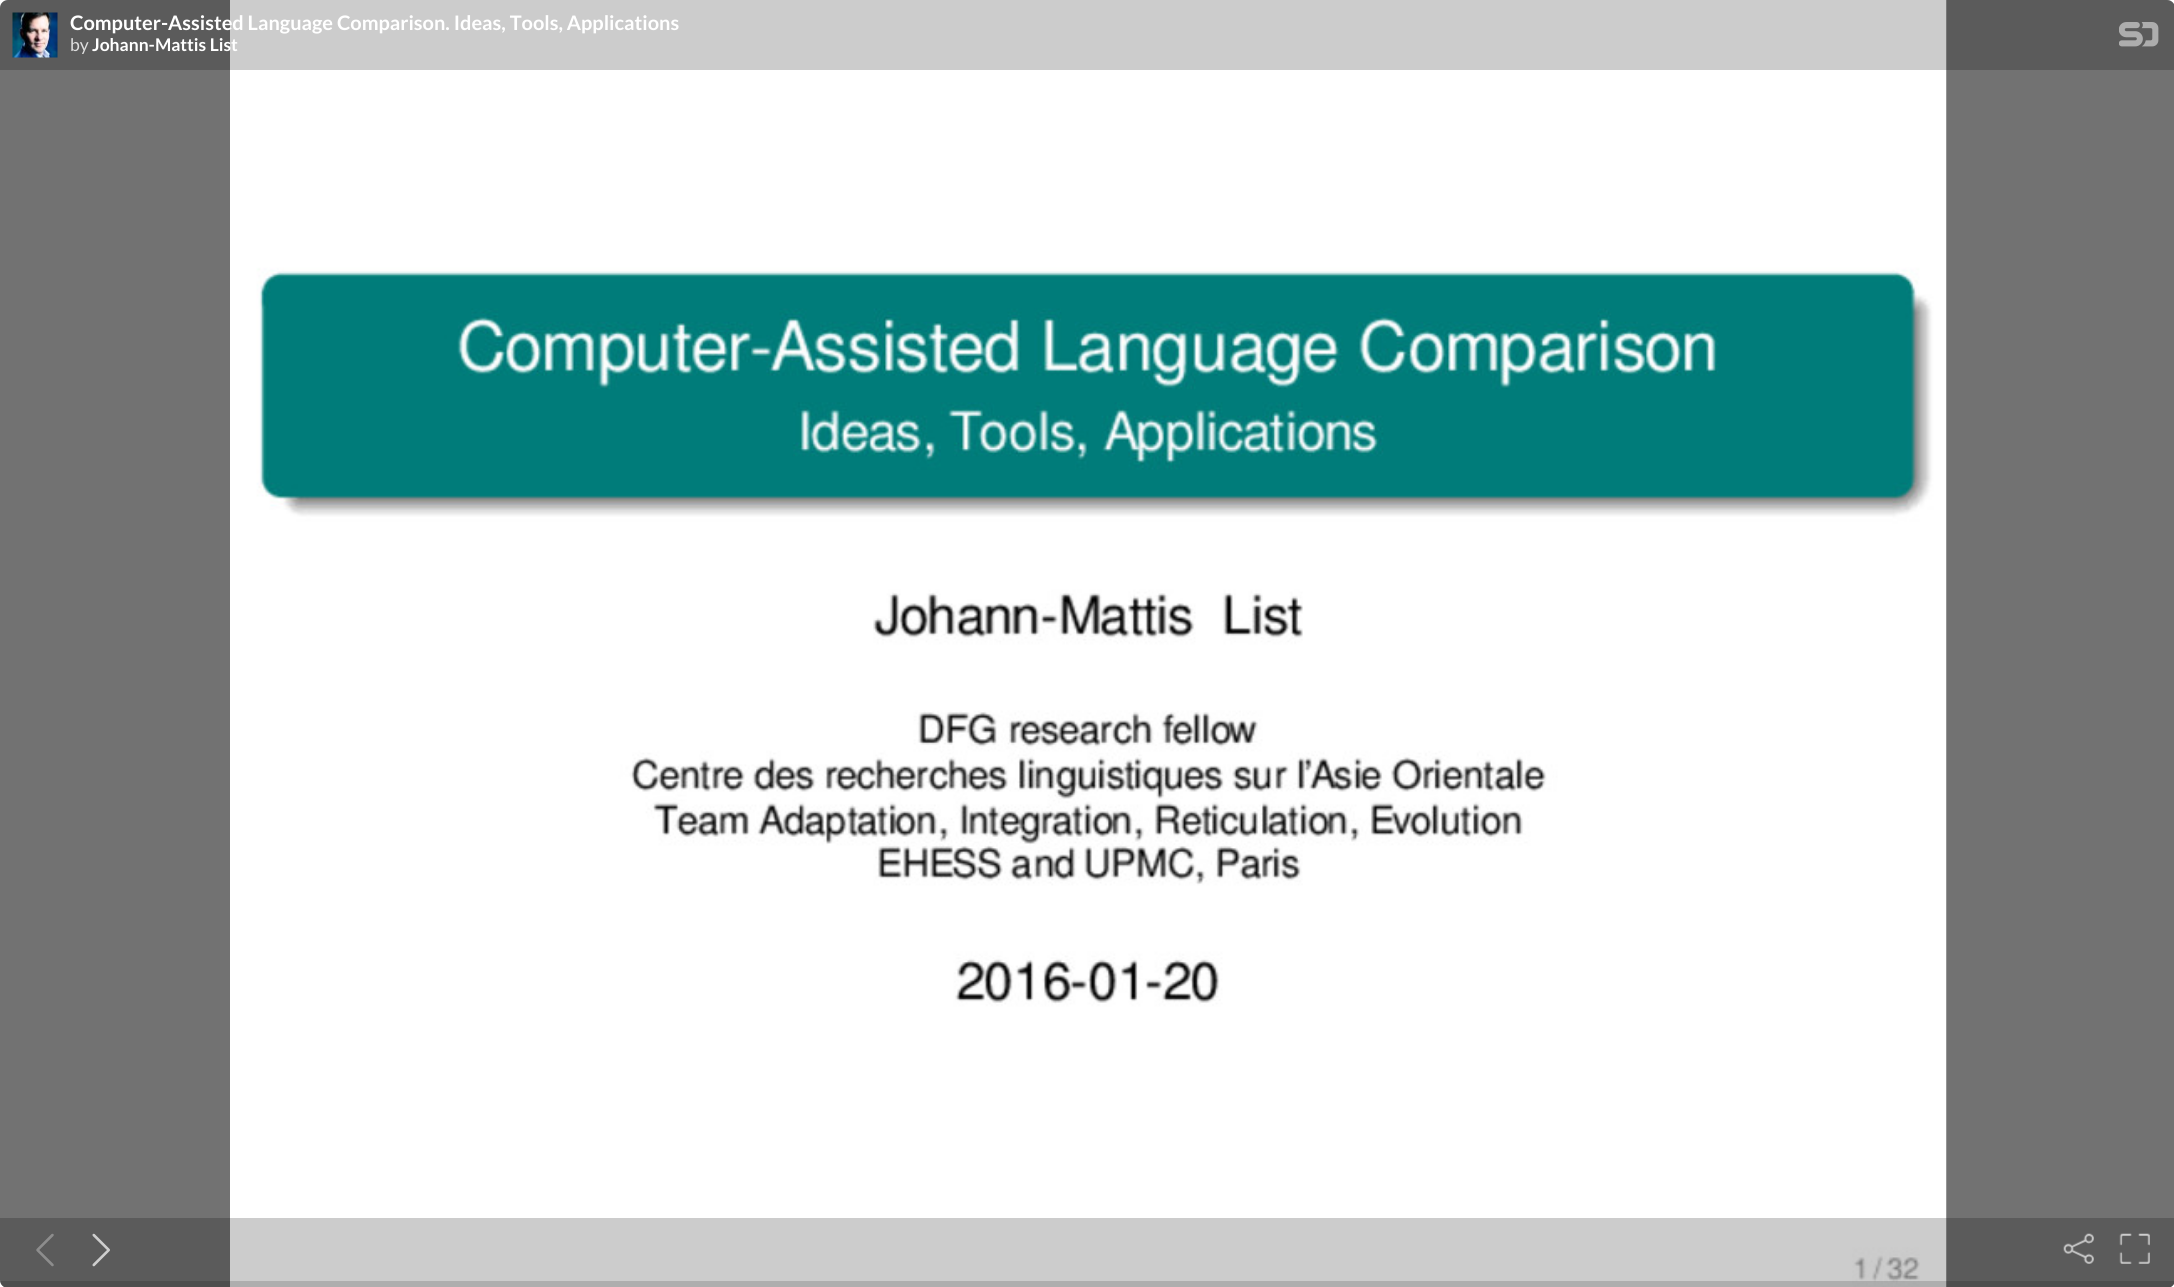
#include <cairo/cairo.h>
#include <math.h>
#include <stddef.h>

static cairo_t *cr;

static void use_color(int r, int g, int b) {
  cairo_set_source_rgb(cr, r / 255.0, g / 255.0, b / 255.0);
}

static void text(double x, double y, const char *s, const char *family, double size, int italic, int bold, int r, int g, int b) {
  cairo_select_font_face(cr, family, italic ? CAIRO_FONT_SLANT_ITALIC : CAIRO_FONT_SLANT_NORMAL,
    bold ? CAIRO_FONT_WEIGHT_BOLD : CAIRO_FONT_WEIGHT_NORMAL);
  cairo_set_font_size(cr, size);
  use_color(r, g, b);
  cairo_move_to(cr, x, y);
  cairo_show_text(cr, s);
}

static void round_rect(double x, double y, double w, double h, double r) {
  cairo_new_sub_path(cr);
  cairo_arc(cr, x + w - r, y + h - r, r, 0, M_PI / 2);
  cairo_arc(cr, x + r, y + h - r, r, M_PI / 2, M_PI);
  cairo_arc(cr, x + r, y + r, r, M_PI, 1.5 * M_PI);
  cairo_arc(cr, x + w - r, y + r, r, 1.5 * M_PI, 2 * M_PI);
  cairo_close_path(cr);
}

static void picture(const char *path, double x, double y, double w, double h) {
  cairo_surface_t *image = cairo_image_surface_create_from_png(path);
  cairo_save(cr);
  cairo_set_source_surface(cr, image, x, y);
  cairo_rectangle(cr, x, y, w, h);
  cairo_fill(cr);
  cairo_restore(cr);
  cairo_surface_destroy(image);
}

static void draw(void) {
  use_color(255, 255, 255);
  cairo_paint(cr);
  use_color(114, 114, 114);
  round_rect(0, 0, 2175, 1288, 8);
  cairo_fill(cr);
  picture("img_01.png", 230, 0, 1717, 1287);
  cairo_set_source_rgba(cr, 0, 0, 0, 0.2);
  cairo_new_path(cr);
  cairo_move_to(cr, 8, 0);
  cairo_line_to(cr, 2167, 0);
  cairo_curve_to(cr, 2171.5, 0, 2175, 3.5, 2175, 8);
  cairo_line_to(cr, 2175, 70);
  cairo_line_to(cr, 0, 70);
  cairo_line_to(cr, 0, 8);
  cairo_curve_to(cr, 0, 3.5, 3.5, 0, 8, 0);
  cairo_close_path(cr);
  cairo_fill(cr);
  picture("img_02.png", 12, 12, 46, 46);
  picture("img_03.png", 2119, 22, 40, 25);
  cairo_new_path(cr);
  cairo_move_to(cr, 0, 1218);
  cairo_line_to(cr, 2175, 1218);
  cairo_line_to(cr, 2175, 1280);
  cairo_curve_to(cr, 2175, 1284.5, 2171.5, 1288, 2167, 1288);
  cairo_line_to(cr, 8, 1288);
  cairo_curve_to(cr, 3.5, 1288, 0, 1284.5, 0, 1280);
  cairo_close_path(cr);
  cairo_fill(cr);
  picture("img_04.png", 36, 1233, 18, 34);
  picture("img_05.png", 92, 1233, 18, 34);
  picture("img_06.png", 2063, 1233, 31, 31);
  picture("img_07.png", 2119, 1233, 31, 31);
  cairo_save(cr);
  round_rect(0, 0, 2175, 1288, 8);
  cairo_clip(cr);
  cairo_set_source_rgba(cr, 0, 0, 0, 0.15);
  cairo_rectangle(cr, 0, 1281, 2174, 6);
  cairo_fill(cr);
  cairo_restore(cr);
  text(70, 30, "Computer-Assisted Language Comparison. Ideas, Tools, Applications", "Lato", 20, 0, 1, 255, 255, 255);
  text(70, 51, "by", "Lato", 17.5, 0, 0, 222, 222, 222);
  text(92, 51, "Johann-Mattis List", "Lato", 17.5, 0, 1, 255, 255, 255);
}

int main(void) {
  cairo_surface_t *surface = cairo_image_surface_create(CAIRO_FORMAT_RGB24, 2174, 1287);
  cr = cairo_create(surface);
  cairo_font_options_t *options = cairo_font_options_create();
  cairo_font_options_set_hint_metrics(options, CAIRO_HINT_METRICS_OFF);
  cairo_font_options_set_hint_style(options, CAIRO_HINT_STYLE_NONE);
  cairo_set_font_options(cr, options);
  cairo_set_miter_limit(cr, 4);
  draw();
  cairo_surface_write_to_png(surface, "out.png");
  cairo_font_options_destroy(options);
  cairo_destroy(cr);
  cairo_surface_destroy(surface);
  return 0;
}
